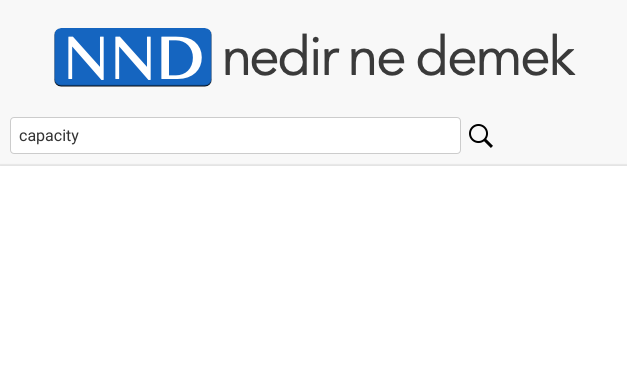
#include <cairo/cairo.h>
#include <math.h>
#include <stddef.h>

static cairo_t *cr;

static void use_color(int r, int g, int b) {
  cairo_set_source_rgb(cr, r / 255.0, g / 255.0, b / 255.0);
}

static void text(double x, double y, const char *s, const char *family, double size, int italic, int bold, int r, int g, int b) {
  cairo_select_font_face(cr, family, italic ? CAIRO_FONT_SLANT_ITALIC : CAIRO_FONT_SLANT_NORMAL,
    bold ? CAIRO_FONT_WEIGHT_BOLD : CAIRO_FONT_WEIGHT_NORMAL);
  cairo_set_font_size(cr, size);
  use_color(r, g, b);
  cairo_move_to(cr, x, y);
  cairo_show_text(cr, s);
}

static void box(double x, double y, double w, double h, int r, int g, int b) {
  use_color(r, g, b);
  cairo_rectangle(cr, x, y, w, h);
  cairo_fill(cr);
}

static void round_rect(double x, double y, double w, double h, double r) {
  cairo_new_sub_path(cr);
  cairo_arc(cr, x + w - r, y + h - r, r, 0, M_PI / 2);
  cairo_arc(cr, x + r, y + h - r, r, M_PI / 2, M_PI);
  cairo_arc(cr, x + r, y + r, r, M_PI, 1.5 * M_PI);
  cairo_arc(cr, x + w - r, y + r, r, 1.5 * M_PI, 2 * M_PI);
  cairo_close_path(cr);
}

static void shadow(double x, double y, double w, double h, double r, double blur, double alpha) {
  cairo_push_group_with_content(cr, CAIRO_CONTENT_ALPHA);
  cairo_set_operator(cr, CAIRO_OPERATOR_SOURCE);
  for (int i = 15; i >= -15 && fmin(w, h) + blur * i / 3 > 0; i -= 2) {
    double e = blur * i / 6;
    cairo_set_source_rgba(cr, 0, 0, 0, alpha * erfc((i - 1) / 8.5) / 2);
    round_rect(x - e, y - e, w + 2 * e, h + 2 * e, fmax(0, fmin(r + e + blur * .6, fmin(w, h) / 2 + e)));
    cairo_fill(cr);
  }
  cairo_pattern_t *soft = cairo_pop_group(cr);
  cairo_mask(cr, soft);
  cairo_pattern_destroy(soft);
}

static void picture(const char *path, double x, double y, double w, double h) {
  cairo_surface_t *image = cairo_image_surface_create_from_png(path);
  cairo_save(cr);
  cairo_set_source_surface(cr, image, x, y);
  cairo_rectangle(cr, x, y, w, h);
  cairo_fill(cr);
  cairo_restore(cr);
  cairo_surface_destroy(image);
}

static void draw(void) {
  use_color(241, 241, 241);
  cairo_paint(cr);
  box(0, 0, 627, 164, 248, 248, 248);
  box(0, 164, 627, 1, 238, 238, 238);
  picture("img_01.png", 54, 28, 522, 59);
  use_color(255, 255, 255);
  round_rect(10.5, 117.5, 450, 36, 3.5);
  cairo_fill_preserve(cr);
  use_color(204, 204, 204);
  cairo_set_line_width(cr, 1);
  cairo_stroke(cr);
  picture("img_02.png", 469, 124, 24, 24);
  use_color(0, 0, 0);
  shadow(0, 167, 627, 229, 0, 2, 0.25);
  box(0, 166, 627, 224, 255, 255, 255);
  text(19, 141, "capacity", "Roboto", 16, 0, 0, 51, 51, 51);
}

int main(void) {
  cairo_surface_t *surface = cairo_image_surface_create(CAIRO_FORMAT_RGB24, 627, 390);
  cr = cairo_create(surface);
  cairo_font_options_t *options = cairo_font_options_create();
  cairo_font_options_set_hint_metrics(options, CAIRO_HINT_METRICS_OFF);
  cairo_font_options_set_hint_style(options, CAIRO_HINT_STYLE_NONE);
  cairo_set_font_options(cr, options);
  cairo_set_miter_limit(cr, 4);
  draw();
  cairo_surface_write_to_png(surface, "out.png");
  cairo_font_options_destroy(options);
  cairo_destroy(cr);
  cairo_surface_destroy(surface);
  return 0;
}
